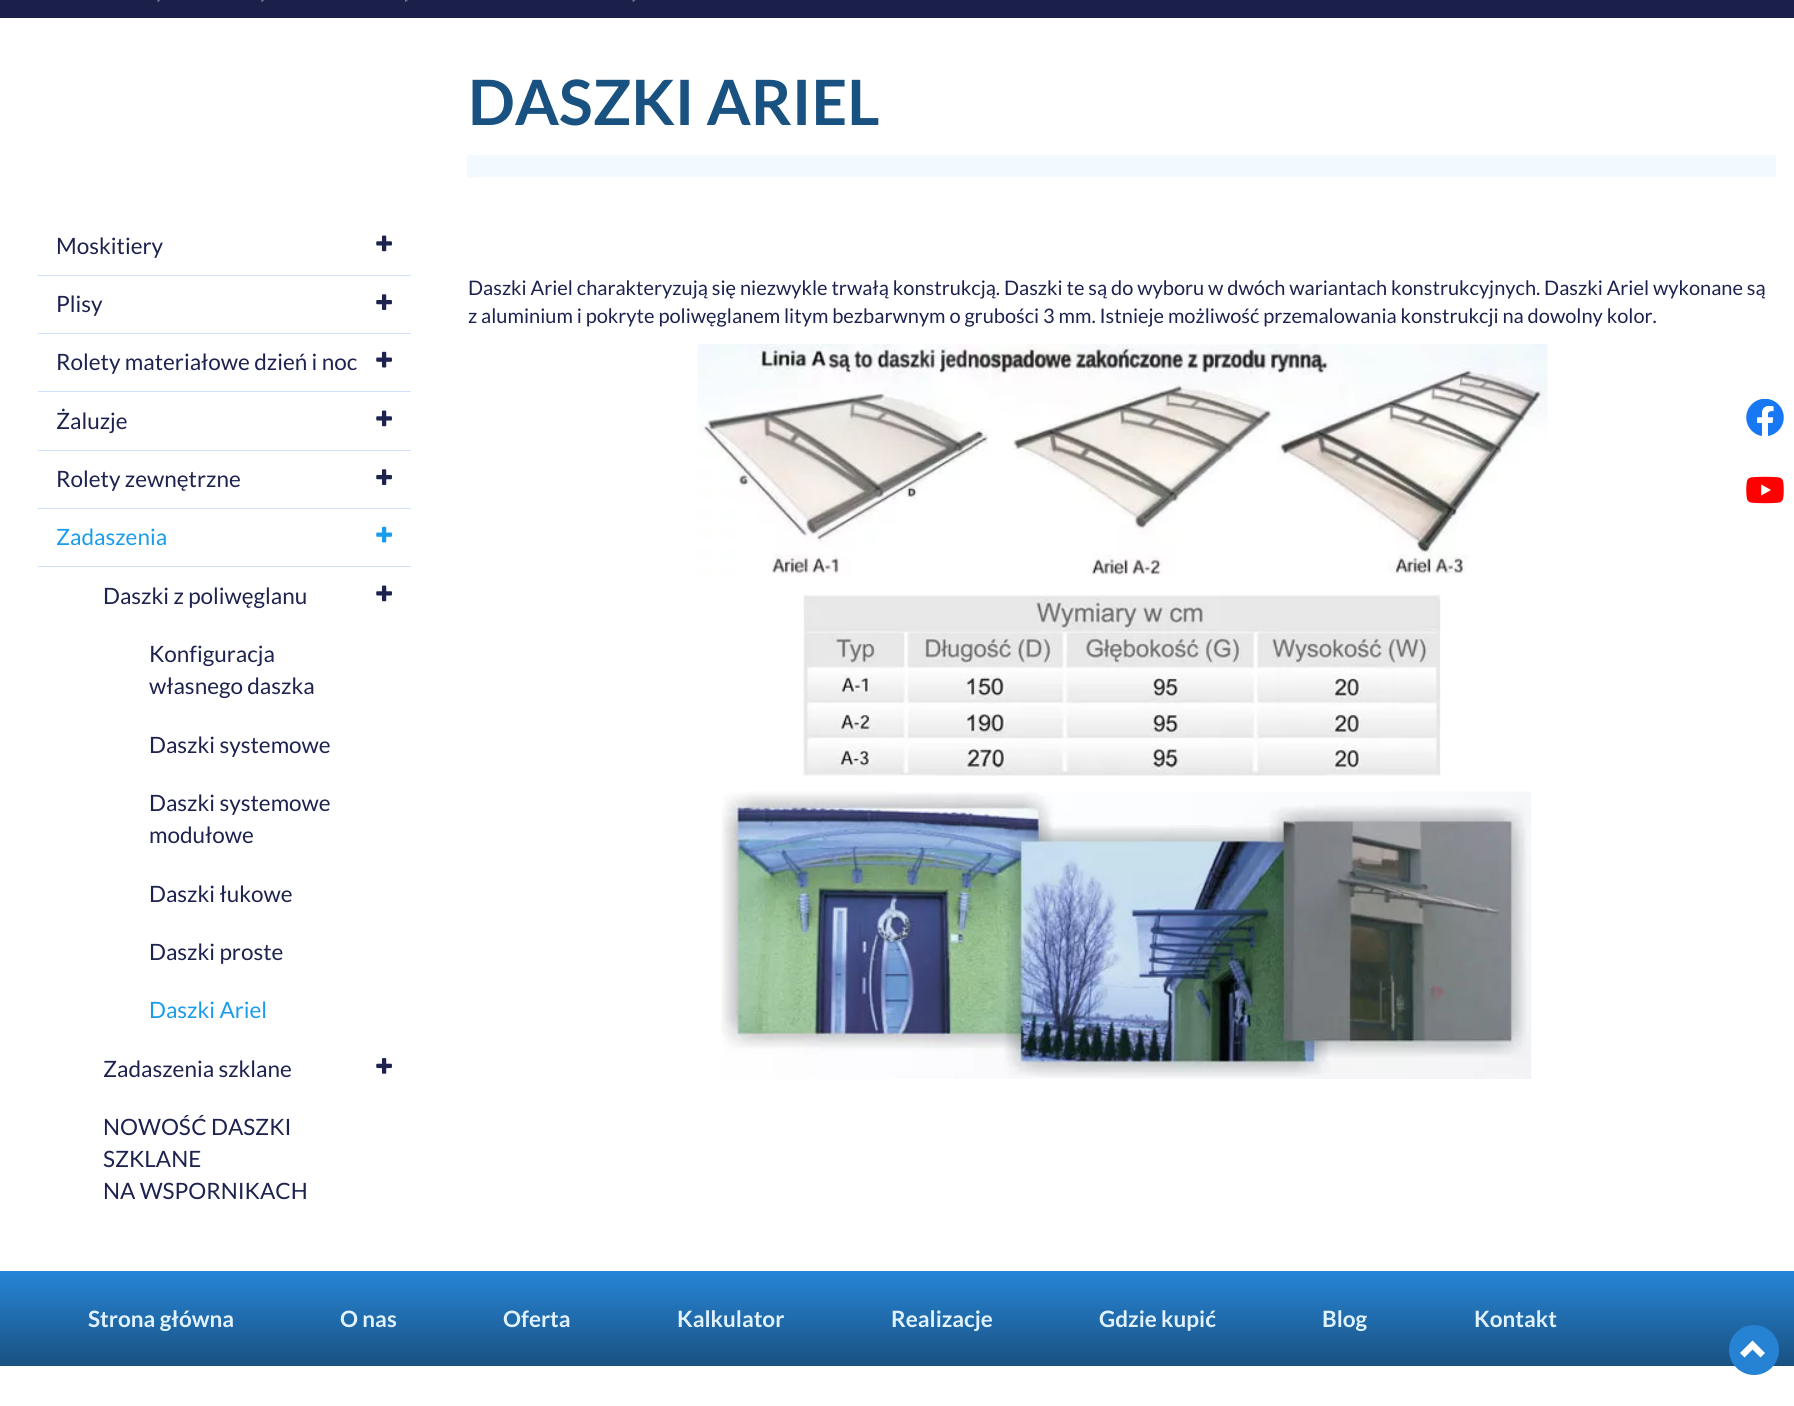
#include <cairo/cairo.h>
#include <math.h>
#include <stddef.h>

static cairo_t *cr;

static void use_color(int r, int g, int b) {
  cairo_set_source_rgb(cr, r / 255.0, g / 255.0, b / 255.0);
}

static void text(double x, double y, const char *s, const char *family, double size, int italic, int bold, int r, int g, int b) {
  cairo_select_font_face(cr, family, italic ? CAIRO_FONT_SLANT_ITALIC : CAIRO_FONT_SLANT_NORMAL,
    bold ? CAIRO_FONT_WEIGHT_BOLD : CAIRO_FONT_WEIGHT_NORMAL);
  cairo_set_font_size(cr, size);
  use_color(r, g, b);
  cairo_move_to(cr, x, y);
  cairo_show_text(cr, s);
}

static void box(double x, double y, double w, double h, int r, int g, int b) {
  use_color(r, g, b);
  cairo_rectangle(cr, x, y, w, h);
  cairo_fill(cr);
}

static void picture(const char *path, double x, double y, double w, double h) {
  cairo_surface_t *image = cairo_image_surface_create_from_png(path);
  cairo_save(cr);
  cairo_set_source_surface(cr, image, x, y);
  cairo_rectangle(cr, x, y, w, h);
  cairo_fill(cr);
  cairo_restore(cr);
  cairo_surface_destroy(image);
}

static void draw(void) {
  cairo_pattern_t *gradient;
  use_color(255, 255, 255);
  cairo_paint(cr);
  box(0, 0, 1794, 18, 27, 32, 75);
  picture("img_01.png", 157, 0, 4, 2);
  picture("img_02.png", 261, 0, 3, 2);
  picture("img_03.png", 405, 0, 3, 2);
  picture("img_01.png", 632, 0, 4, 2);
  box(467, 155, 1309, 22, 242, 250, 255);
  picture("img_04.png", 697, 344, 851, 232);
  picture("img_05.png", 803, 594, 638, 182);
  picture("img_06.png", 721, 791, 811, 288);
  box(38, 275, 373, 1, 207, 225, 255);
  picture("img_07.png", 376, 235, 16, 17);
  box(38, 333, 373, 1, 207, 225, 255);
  picture("img_08.png", 376, 294, 16, 16);
  box(38, 391, 373, 1, 207, 225, 255);
  picture("img_09.png", 376, 351, 16, 17);
  box(38, 450, 373, 1, 207, 225, 255);
  picture("img_07.png", 376, 410, 16, 17);
  box(38, 508, 373, 1, 207, 225, 255);
  picture("img_08.png", 376, 469, 16, 16);
  box(38, 566, 373, 1, 207, 225, 255);
  picture("img_10.png", 376, 526, 16, 17);
  picture("img_07.png", 376, 585, 16, 17);
  picture("img_11.png", 376, 1058, 16, 16);
  picture("img_12.png", 1746, 399, 38, 37);
  picture("img_13.png", 1746, 476, 38, 28);
  gradient = cairo_pattern_create_linear(898, 1271, 898, 1366);
  cairo_pattern_add_color_stop_rgba(gradient, 0, 0.153, 0.522, 0.843, 1);
  cairo_pattern_add_color_stop_rgba(gradient, 1, 0.098, 0.318, 0.506, 1);
  cairo_set_source(cr, gradient);
  cairo_pattern_destroy(gradient);
  cairo_rectangle(cr, 0, 1271, 1794, 95);
  cairo_fill(cr);
  use_color(38, 130, 211);
  cairo_arc(cr, 1754, 1350, 25, 0, 2 * M_PI);
  cairo_fill(cr);
  use_color(255, 255, 255);
  cairo_new_path(cr);
  cairo_move_to(cr, 1765, 1353);
  cairo_line_to(cr, 1760.5, 1357.5);
  cairo_line_to(cr, 1752.5, 1349.5);
  cairo_line_to(cr, 1744.5, 1357.5);
  cairo_line_to(cr, 1740, 1353);
  cairo_line_to(cr, 1752.5, 1340.5);
  cairo_close_path(cr);
  cairo_fill(cr);
  text(468, 125, "DASZKI ARIEL", "Lato", 62.5, 0, 1, 25, 81, 129);
  text(468, 295, "Daszki Ariel charakteryzują się niezwykle trwałą konstrukcją. Daszki te są do wyboru w dwóch wariantach konstrukcyjnych. Daszki Ariel wykonane są", "Lato", 20, 0, 0, 29, 34, 79);
  text(468, 323, "z aluminium i pokryte poliwęglanem litym bezbarwnym o grubości 3 mm. Istnieje możliwość przemalowania konstrukcji na dowolny kolor.", "Lato", 20, 0, 0, 29, 34, 79);
  text(56, 254, "Moskitiery", "Lato", 22.5, 0, 0, 29, 34, 79);
  text(56, 312, "Plisy", "Lato", 22.5, 0, 0, 29, 34, 79);
  text(56, 370, "Rolety materiałowe dzień i noc", "Lato", 22.5, 0, 0, 29, 34, 79);
  text(56, 429, "Żaluzje", "Lato", 22.5, 0, 0, 29, 34, 79);
  text(56, 487, "Rolety zewnętrzne", "Lato", 22.5, 0, 0, 29, 34, 79);
  text(56, 545, "Zadaszenia", "Lato", 22.5, 0, 0, 26, 156, 237);
  text(103, 604, "Daszki z poliwęglanu", "Lato", 22.5, 0, 0, 29, 34, 79);
  text(149, 662, "Konfiguracja", "Lato", 22.5, 0, 0, 29, 34, 79);
  text(149, 694, "własnego daszka", "Lato", 22.5, 0, 0, 29, 34, 79);
  text(149, 753, "Daszki systemowe", "Lato", 22.5, 0, 0, 29, 34, 79);
  text(149, 811, "Daszki systemowe", "Lato", 22.5, 0, 0, 29, 34, 79);
  text(149, 843, "modułowe", "Lato", 22.5, 0, 0, 29, 34, 79);
  text(149, 902, "Daszki łukowe", "Lato", 22.5, 0, 0, 29, 34, 79);
  text(149, 960, "Daszki proste", "Lato", 22.5, 0, 0, 29, 34, 79);
  text(149, 1018, "Daszki Ariel", "Lato", 22.5, 0, 0, 26, 156, 237);
  text(103, 1077, "Zadaszenia szklane", "Lato", 22.5, 0, 0, 29, 34, 79);
  text(103, 1135, "NOWOŚĆ DASZKI", "Lato", 22.5, 0, 0, 29, 34, 79);
  text(103, 1167, "SZKLANE", "Lato", 22.5, 0, 0, 29, 34, 79);
  text(103, 1199, "NA WSPORNIKACH", "Lato", 22.5, 0, 0, 29, 34, 79);
  text(88, 1327, "Strona główna", "Lato", 22.5, 0, 1, 224, 242, 255);
  text(340, 1327, "O nas", "Lato", 22.5, 0, 1, 224, 242, 255);
  text(503, 1327, "Oferta", "Lato", 22.5, 0, 1, 224, 242, 255);
  text(677, 1327, "Kalkulator", "Lato", 22.5, 0, 1, 224, 242, 255);
  text(891, 1327, "Realizacje", "Lato", 22.5, 0, 1, 224, 242, 255);
  text(1099, 1327, "Gdzie kupić", "Lato", 22.5, 0, 1, 224, 242, 255);
  text(1322, 1327, "Blog", "Lato", 22.5, 0, 1, 224, 242, 255);
  text(1474, 1327, "Kontakt", "Lato", 22.5, 0, 1, 224, 242, 255);
}

int main(void) {
  cairo_surface_t *surface = cairo_image_surface_create(CAIRO_FORMAT_RGB24, 1794, 1406);
  cr = cairo_create(surface);
  cairo_font_options_t *options = cairo_font_options_create();
  cairo_font_options_set_hint_metrics(options, CAIRO_HINT_METRICS_OFF);
  cairo_font_options_set_hint_style(options, CAIRO_HINT_STYLE_NONE);
  cairo_set_font_options(cr, options);
  cairo_set_miter_limit(cr, 4);
  draw();
  cairo_surface_write_to_png(surface, "out.png");
  cairo_font_options_destroy(options);
  cairo_destroy(cr);
  cairo_surface_destroy(surface);
  return 0;
}
